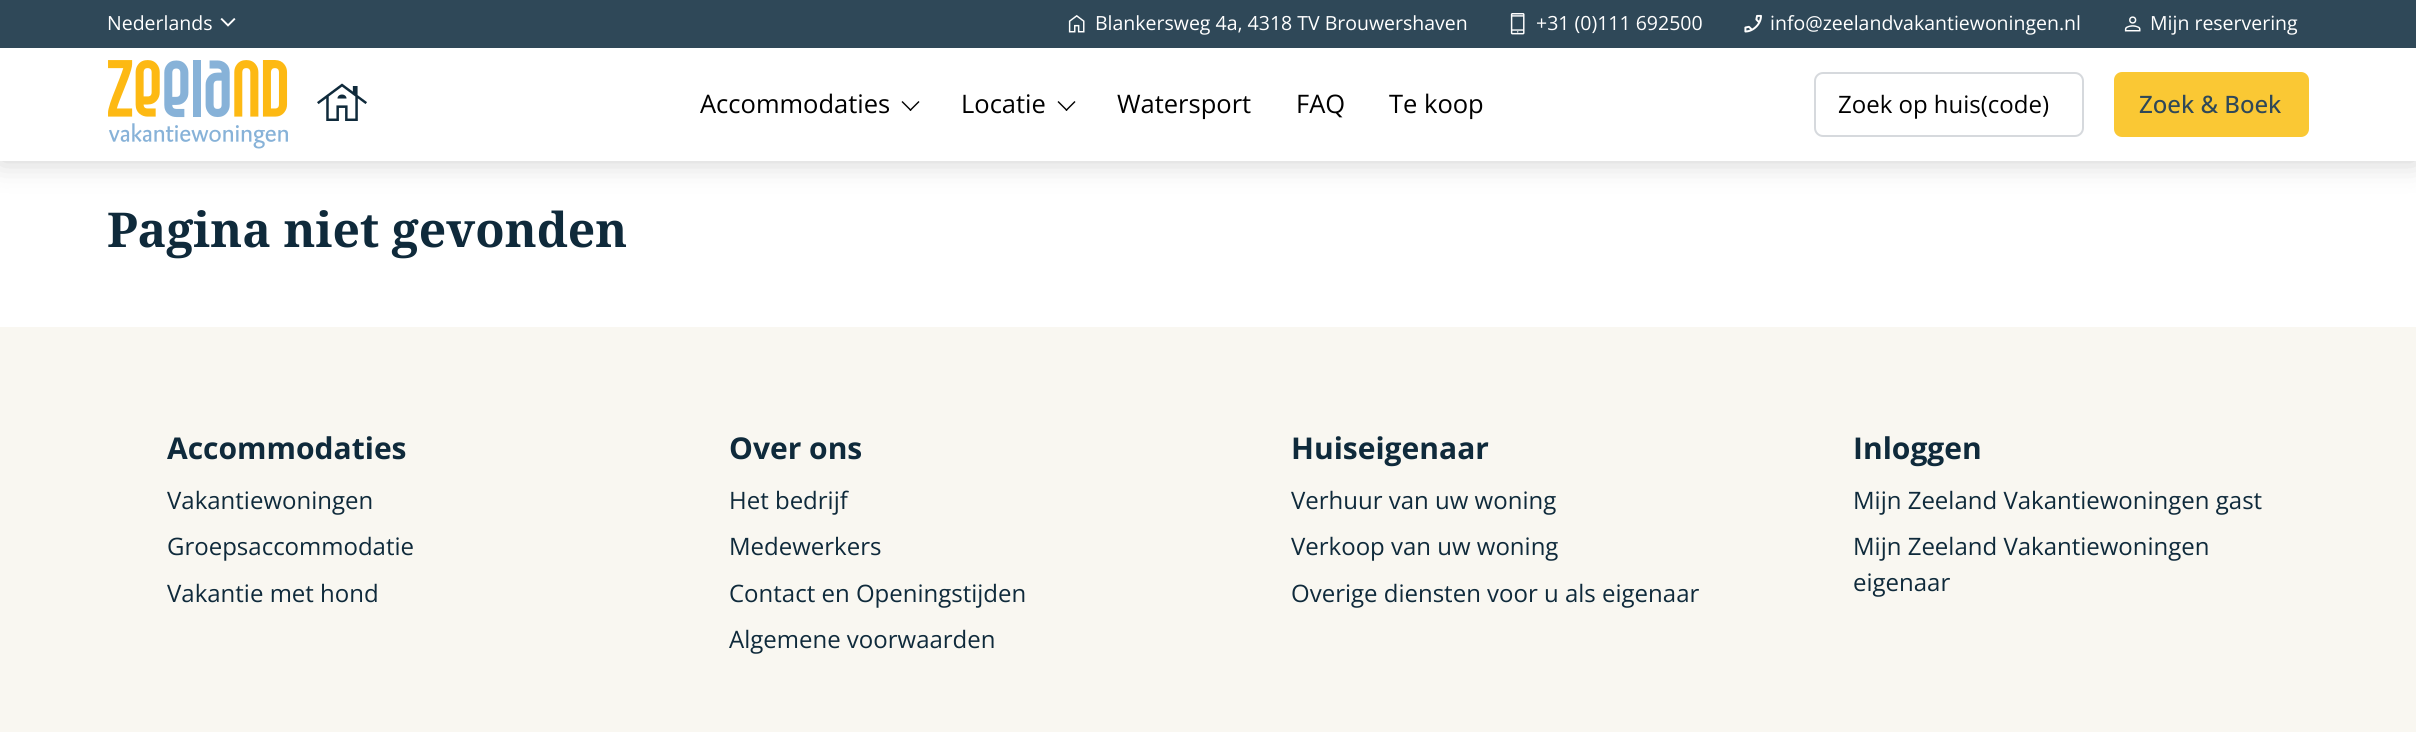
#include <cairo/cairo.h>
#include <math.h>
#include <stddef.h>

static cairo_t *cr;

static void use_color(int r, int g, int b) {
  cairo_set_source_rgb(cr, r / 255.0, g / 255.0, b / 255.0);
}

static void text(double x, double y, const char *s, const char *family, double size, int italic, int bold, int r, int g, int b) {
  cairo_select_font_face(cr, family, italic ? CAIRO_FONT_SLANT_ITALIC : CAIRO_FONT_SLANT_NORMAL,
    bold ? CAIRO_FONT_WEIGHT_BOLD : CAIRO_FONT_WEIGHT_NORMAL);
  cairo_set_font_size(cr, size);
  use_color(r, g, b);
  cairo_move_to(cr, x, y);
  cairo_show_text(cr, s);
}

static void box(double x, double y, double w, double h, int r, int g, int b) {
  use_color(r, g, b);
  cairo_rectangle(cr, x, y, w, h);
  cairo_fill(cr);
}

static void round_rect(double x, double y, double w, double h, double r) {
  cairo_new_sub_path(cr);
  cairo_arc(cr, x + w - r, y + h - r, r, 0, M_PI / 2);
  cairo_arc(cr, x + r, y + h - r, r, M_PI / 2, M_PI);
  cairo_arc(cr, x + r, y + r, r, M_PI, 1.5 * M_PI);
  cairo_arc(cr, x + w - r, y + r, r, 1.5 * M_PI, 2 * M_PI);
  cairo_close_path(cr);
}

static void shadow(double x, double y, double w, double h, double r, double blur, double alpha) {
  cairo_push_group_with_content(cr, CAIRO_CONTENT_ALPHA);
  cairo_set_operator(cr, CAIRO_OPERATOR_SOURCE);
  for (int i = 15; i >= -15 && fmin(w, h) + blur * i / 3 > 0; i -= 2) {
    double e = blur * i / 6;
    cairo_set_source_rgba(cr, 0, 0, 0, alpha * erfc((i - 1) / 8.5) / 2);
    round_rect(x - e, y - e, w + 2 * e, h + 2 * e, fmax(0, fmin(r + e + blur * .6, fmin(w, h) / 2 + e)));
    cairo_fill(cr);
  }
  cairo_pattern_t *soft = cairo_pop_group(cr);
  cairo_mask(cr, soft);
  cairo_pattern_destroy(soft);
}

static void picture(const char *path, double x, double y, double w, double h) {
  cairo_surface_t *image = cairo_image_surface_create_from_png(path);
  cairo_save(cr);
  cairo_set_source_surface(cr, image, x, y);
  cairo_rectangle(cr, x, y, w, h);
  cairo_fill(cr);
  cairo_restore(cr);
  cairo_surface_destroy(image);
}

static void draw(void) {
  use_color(255, 255, 255);
  cairo_paint(cr);
  cairo_save(cr);
  cairo_set_fill_rule(cr, CAIRO_FILL_RULE_EVEN_ODD);
  cairo_new_path(cr);
  cairo_move_to(cr, 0, 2);
  cairo_line_to(cr, 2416, 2);
  cairo_line_to(cr, 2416, 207);
  cairo_line_to(cr, 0, 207);
  cairo_close_path(cr);
  cairo_move_to(cr, 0, 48);
  cairo_line_to(cr, 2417, 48);
  cairo_line_to(cr, 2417, 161);
  cairo_line_to(cr, 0, 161);
  cairo_close_path(cr);
  cairo_clip(cr);
  use_color(0, 0, 0);
  shadow(0, 48, 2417, 113, 0, 15, 0.2);
  cairo_restore(cr);
  box(0, 0, 2416, 48, 47, 72, 88);
  picture("img_01.png", 220, 18, 16, 9);
  picture("img_02.png", 1068, 15, 17, 18);
  picture("img_03.png", 1510, 13, 15, 22);
  picture("img_04.png", 1744, 14, 18, 19);
  picture("img_05.png", 2124, 16, 17, 16);
  cairo_set_source_rgba(cr, 1, 1, 1, 0.97);
  cairo_rectangle(cr, 0, 160, 2416, 1);
  cairo_fill(cr);
  picture("img_06.png", 108, 60, 180, 89);
  picture("img_07.png", 317, 83, 50, 38);
  use_color(0, 0, 0);
  cairo_new_path(cr);
  cairo_move_to(cr, 909.5, 110);
  cairo_line_to(cr, 918.5, 101);
  cairo_line_to(cr, 919.5, 102);
  cairo_line_to(cr, 910.5, 111);
  cairo_close_path(cr);
  cairo_fill(cr);
  cairo_new_path(cr);
  cairo_move_to(cr, 901.5, 102);
  cairo_line_to(cr, 902.5, 101);
  cairo_line_to(cr, 911.5, 110);
  cairo_line_to(cr, 910.5, 111);
  cairo_close_path(cr);
  cairo_fill(cr);
  cairo_new_path(cr);
  cairo_move_to(cr, 1065.5, 110);
  cairo_line_to(cr, 1074.5, 101);
  cairo_line_to(cr, 1075.5, 102);
  cairo_line_to(cr, 1066.5, 111);
  cairo_close_path(cr);
  cairo_fill(cr);
  cairo_new_path(cr);
  cairo_move_to(cr, 1057.5, 102);
  cairo_line_to(cr, 1058.5, 101);
  cairo_line_to(cr, 1067.5, 110);
  cairo_line_to(cr, 1066.5, 111);
  cairo_close_path(cr);
  cairo_fill(cr);
  round_rect(1815, 73, 268, 63, 8);
  use_color(214, 217, 221);
  cairo_stroke(cr);
  use_color(250, 200, 52);
  round_rect(2114, 72, 195, 65, 8);
  cairo_fill(cr);
  box(0, 327, 2416, 405, 249, 247, 241);
  text(107, 30, "Nederlands", "Open Sans", 19.5, 0, 0, 255, 255, 255);
  text(1095, 30, "Blankersweg 4a, 4318 TV Brouwershaven", "Open Sans", 19.5, 0, 0, 255, 255, 255);
  text(1536, 30, "+31 (0)111 692500", "Open Sans", 19.5, 0, 0, 255, 255, 255);
  text(1770, 30, "info@zeelandvakantiewoningen.nl", "Open Sans", 19.5, 0, 0, 255, 255, 255);
  text(2150, 30, "Mijn reservering", "Open Sans", 19.5, 0, 0, 255, 255, 255);
  text(700, 113, "Accommodaties", "Open Sans", 25.5, 0, 0, 0, 0, 0);
  text(961, 113, "Locatie", "Open Sans", 25.5, 0, 0, 0, 0, 0);
  text(1117, 113, "Watersport", "Open Sans", 25.5, 0, 0, 0, 0, 0);
  text(1296, 113, "FAQ", "Open Sans", 25.5, 0, 0, 0, 0, 0);
  text(1389, 113, "Te koop", "Open Sans", 25.5, 0, 0, 0, 0, 0);
  text(1838, 113, "Zoek op huis(code)", "Open Sans", 24, 0, 0, 0, 0, 0);
  text(2139, 113, "Zoek & Boek", "Open Sans Medium", 24, 0, 0, 47, 72, 88);
  text(107, 247, "Pagina niet gevonden", "Noto Serif", 48, 0, 1, 15, 42, 59);
  text(167, 459, "Accommodaties", "Open Sans", 30, 0, 1, 15, 42, 59);
  text(167, 509, "Vakantiewoningen", "Open Sans", 24, 0, 0, 15, 42, 59);
  text(167, 555, "Groepsaccommodatie", "Open Sans", 24, 0, 0, 15, 42, 59);
  text(167, 602, "Vakantie met hond", "Open Sans", 24, 0, 0, 15, 42, 59);
  text(729, 459, "Over ons", "Open Sans", 30, 0, 1, 15, 42, 59);
  text(729, 509, "Het bedrijf", "Open Sans", 24, 0, 0, 15, 42, 59);
  text(729, 555, "Medewerkers", "Open Sans", 24, 0, 0, 15, 42, 59);
  text(729, 602, "Contact en Openingstijden", "Open Sans", 24, 0, 0, 15, 42, 59);
  text(729, 648, "Algemene voorwaarden", "Open Sans", 24, 0, 0, 15, 42, 59);
  text(1291, 459, "Huiseigenaar", "Open Sans", 30, 0, 1, 15, 42, 59);
  text(1291, 509, "Verhuur van uw woning", "Open Sans", 24, 0, 0, 15, 42, 59);
  text(1291, 555, "Verkoop van uw woning", "Open Sans", 24, 0, 0, 15, 42, 59);
  text(1291, 602, "Overige diensten voor u als eigenaar", "Open Sans", 24, 0, 0, 15, 42, 59);
  text(1853, 459, "Inloggen", "Open Sans", 30, 0, 1, 15, 42, 59);
  text(1853, 509, "Mijn Zeeland Vakantiewoningen gast", "Open Sans", 24, 0, 0, 15, 42, 59);
  text(1853, 555, "Mijn Zeeland Vakantiewoningen", "Open Sans", 24, 0, 0, 15, 42, 59);
  text(1853, 591, "eigenaar", "Open Sans", 24, 0, 0, 15, 42, 59);
}

int main(void) {
  cairo_surface_t *surface = cairo_image_surface_create(CAIRO_FORMAT_RGB24, 2416, 732);
  cr = cairo_create(surface);
  cairo_font_options_t *options = cairo_font_options_create();
  cairo_font_options_set_hint_metrics(options, CAIRO_HINT_METRICS_OFF);
  cairo_font_options_set_hint_style(options, CAIRO_HINT_STYLE_NONE);
  cairo_set_font_options(cr, options);
  cairo_set_miter_limit(cr, 4);
  draw();
  cairo_surface_write_to_png(surface, "out.png");
  cairo_font_options_destroy(options);
  cairo_destroy(cr);
  cairo_surface_destroy(surface);
  return 0;
}
